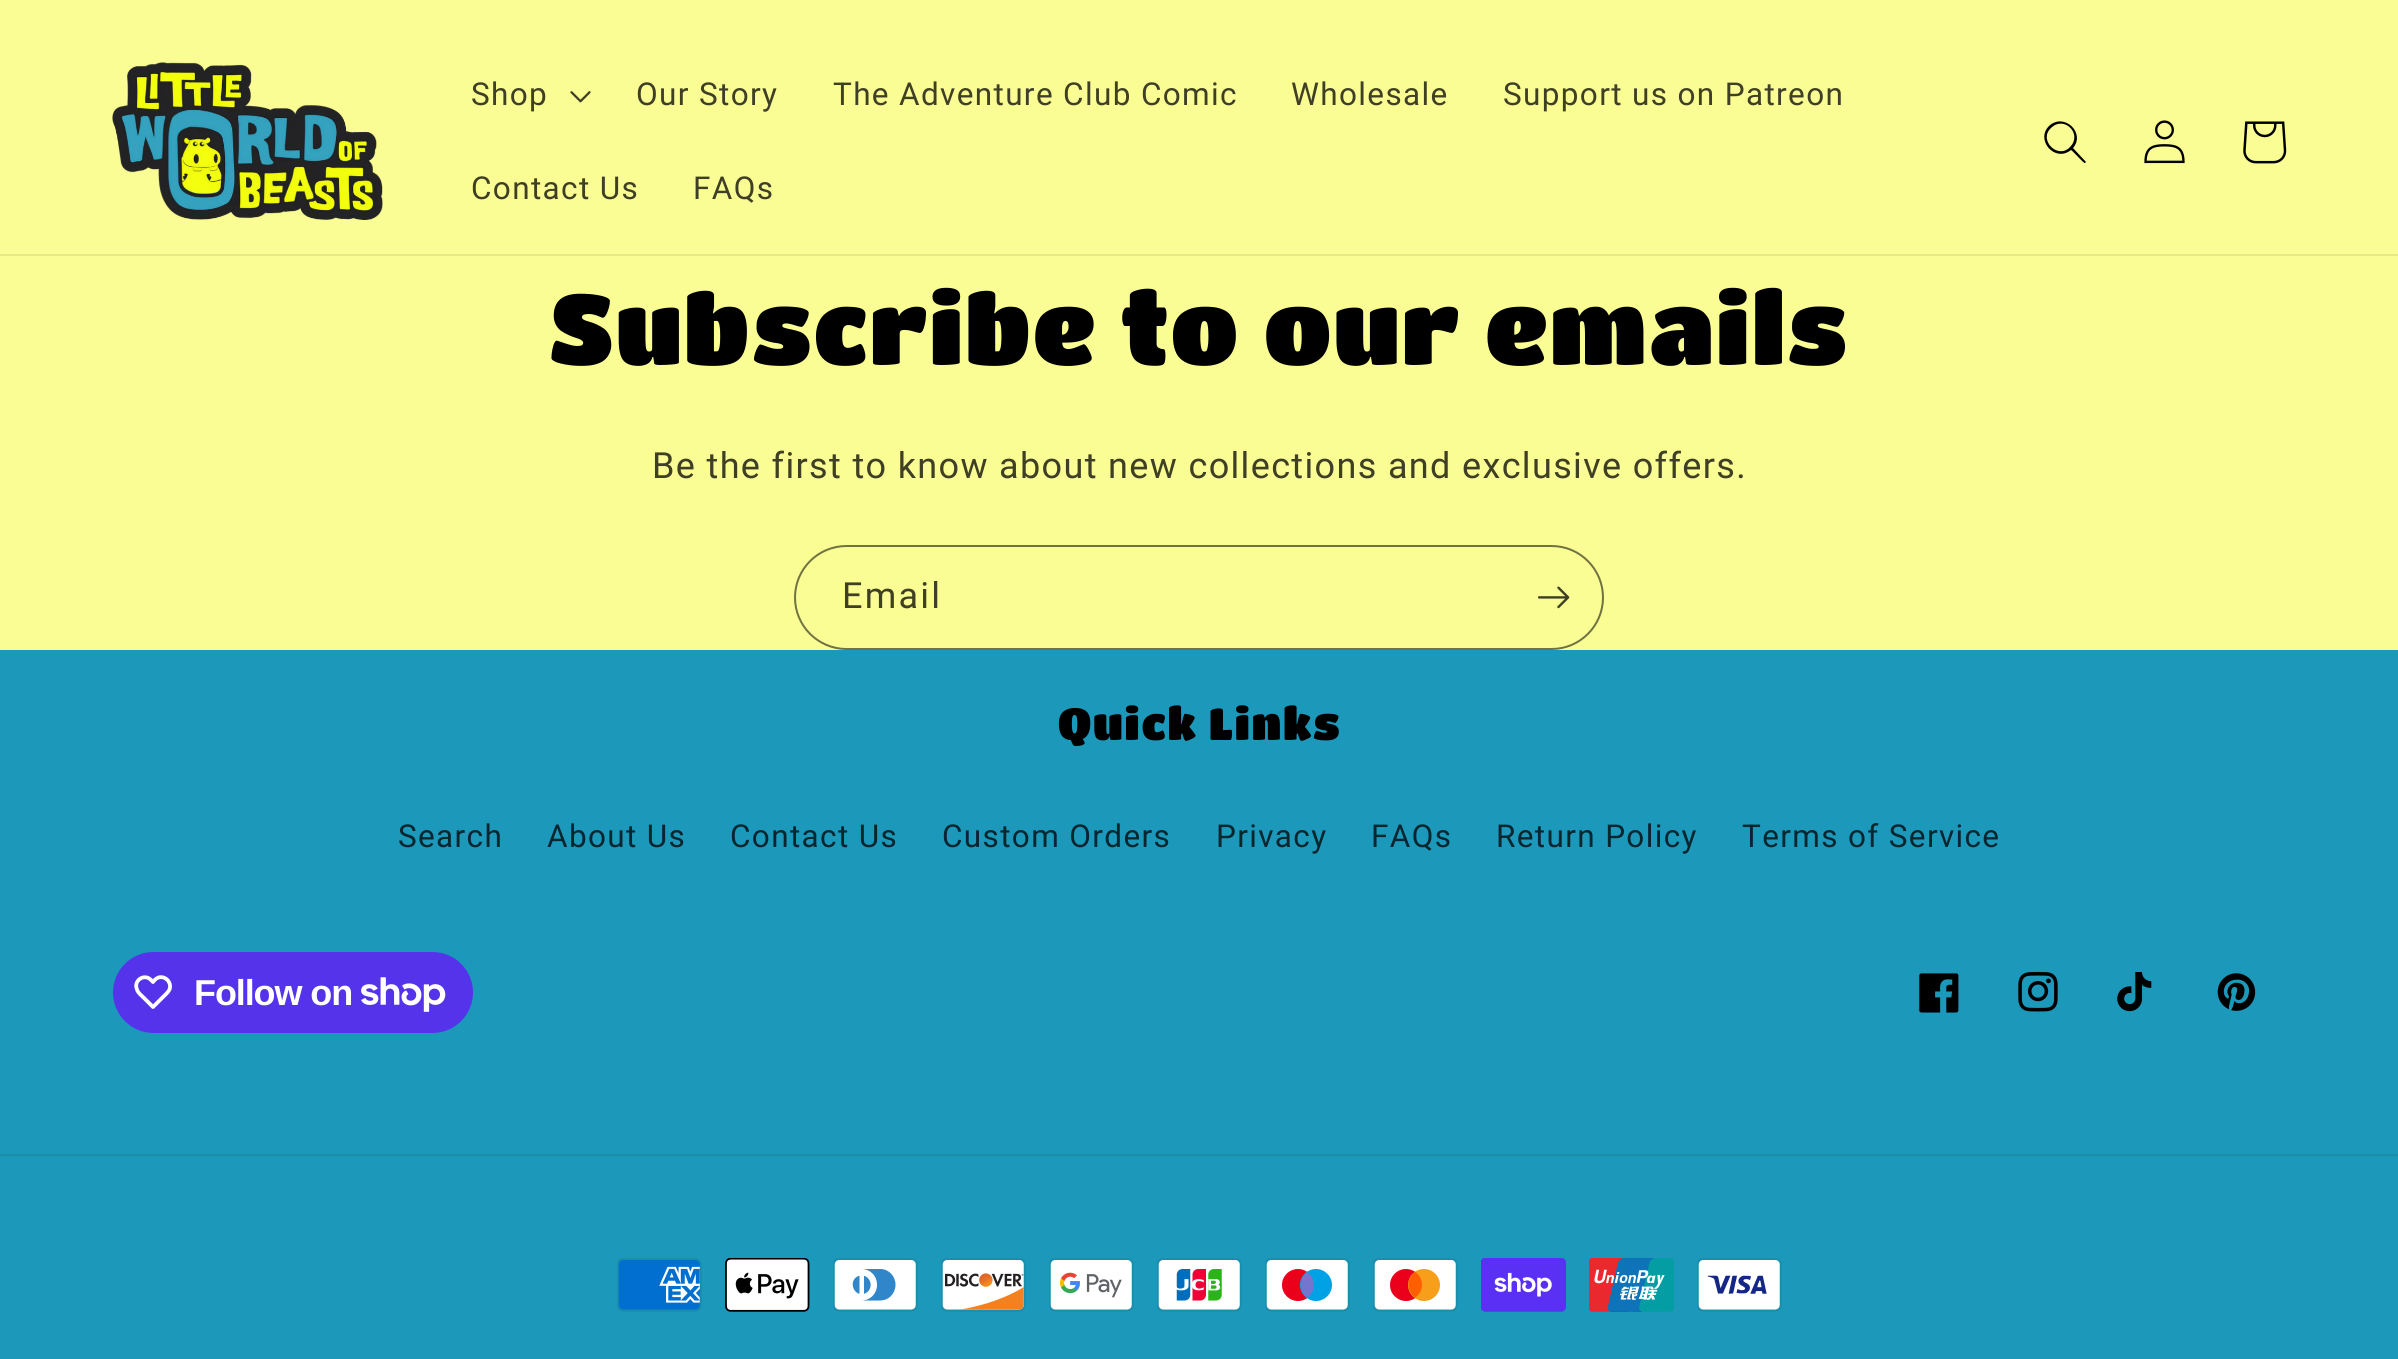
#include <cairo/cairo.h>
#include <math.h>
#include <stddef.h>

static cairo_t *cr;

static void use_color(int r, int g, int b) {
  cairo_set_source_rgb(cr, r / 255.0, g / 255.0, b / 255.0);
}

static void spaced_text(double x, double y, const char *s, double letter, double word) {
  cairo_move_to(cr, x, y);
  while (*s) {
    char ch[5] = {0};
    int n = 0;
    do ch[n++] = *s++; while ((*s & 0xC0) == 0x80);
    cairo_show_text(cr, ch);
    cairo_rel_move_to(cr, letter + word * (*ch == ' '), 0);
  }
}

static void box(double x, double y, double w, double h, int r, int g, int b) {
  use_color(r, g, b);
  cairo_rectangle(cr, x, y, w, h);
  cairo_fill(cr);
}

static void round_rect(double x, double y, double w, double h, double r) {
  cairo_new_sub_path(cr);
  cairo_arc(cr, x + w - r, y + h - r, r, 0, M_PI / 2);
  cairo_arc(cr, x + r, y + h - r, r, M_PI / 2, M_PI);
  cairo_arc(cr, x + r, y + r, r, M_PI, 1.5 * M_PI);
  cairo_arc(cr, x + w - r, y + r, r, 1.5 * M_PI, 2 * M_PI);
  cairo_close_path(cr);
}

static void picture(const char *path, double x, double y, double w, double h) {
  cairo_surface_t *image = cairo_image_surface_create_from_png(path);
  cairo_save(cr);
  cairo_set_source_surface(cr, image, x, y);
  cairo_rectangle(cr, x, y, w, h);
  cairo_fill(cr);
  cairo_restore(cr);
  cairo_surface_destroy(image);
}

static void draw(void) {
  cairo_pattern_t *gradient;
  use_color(28, 153, 186);
  cairo_paint(cr);
  gradient = cairo_pattern_create_linear(2029, 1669, 369, -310);
  cairo_pattern_add_color_stop_rgba(gradient, 1, 0.98, 0.992, 0.576, 1);
  cairo_pattern_add_color_stop_rgba(gradient, 1, 1, 1, 1, 1);
  cairo_set_source(cr, gradient);
  cairo_pattern_destroy(gradient);
  cairo_rectangle(cr, 0, 0, 2398, 257);
  cairo_fill(cr);
  box(0, 254, 2398, 2, 230, 233, 135);
  picture("img_01.png", 112, 62, 271, 158);
  picture("img_02.png", 570, 91, 21, 12);
  use_color(0, 0, 0);
  cairo_set_fill_rule(cr, CAIRO_FILL_RULE_EVEN_ODD);
  cairo_new_path(cr);
  cairo_move_to(cr, 2070, 147);
  cairo_curve_to(cr, 2058, 160, 2038, 140, 2051, 128);
  cairo_curve_to(cr, 2064, 115, 2083, 134, 2070, 147);
  cairo_close_path(cr);
  cairo_move_to(cr, 2071, 150);
  cairo_curve_to(cr, 2055, 163, 2035, 140, 2049, 126);
  cairo_curve_to(cr, 2064, 112, 2086, 133, 2073, 148);
  cairo_line_to(cr, 2086, 162);
  cairo_line_to(cr, 2085, 163);
  cairo_curve_to(cr, 2084, 164, 2073, 151, 2071, 150);
  cairo_close_path(cr);
  cairo_fill(cr);
  picture("img_03.png", 2144, 120, 41, 44);
  picture("img_04.png", 2243, 121, 44, 43);
  gradient = cairo_pattern_create_linear(2029, 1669, 369, -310);
  cairo_pattern_add_color_stop_rgba(gradient, 1, 0.98, 0.992, 0.576, 1);
  cairo_pattern_add_color_stop_rgba(gradient, 1, 1, 1, 1, 1);
  cairo_set_source(cr, gradient);
  cairo_pattern_destroy(gradient);
  cairo_rectangle(cr, 0, 257, 2398, 393);
  cairo_fill(cr);
  round_rect(795, 546, 808, 103, 51.5);
  use_color(113, 114, 66);
  cairo_stroke(cr);
  picture("img_05.png", 1538, 586, 32, 23);
  use_color(84, 51, 235);
  round_rect(113, 952, 360, 81, 40.5);
  cairo_fill(cr);
  cairo_new_path(cr);
  cairo_move_to(cr, 151, 980);
  cairo_line_to(cr, 153, 982);
  cairo_curve_to(cr, 154.5, 980, 156, 978.5, 158.5, 977.5);
  cairo_curve_to(cr, 165.5, 975.5, 172, 982.5, 169.5, 989.5);
  cairo_curve_to(cr, 168, 992.5, 165, 995, 162.5, 997.5);
  cairo_line_to(cr, 153, 1007);
  cairo_line_to(cr, 143.5, 997.5);
  cairo_curve_to(cr, 141, 995, 138, 993, 137, 989.5);
  cairo_curve_to(cr, 133, 980.5, 144.5, 973, 151, 980);
  cairo_close_path(cr);
  use_color(255, 255, 255);
  cairo_set_line_width(cr, 3.8);
  cairo_set_line_join(cr, CAIRO_LINE_JOIN_ROUND);
  cairo_stroke(cr);
  picture("img_06.png", 361, 977, 85, 35);
  picture("img_07.png", 1919, 973, 40, 40);
  picture("img_08.png", 2018, 972, 40, 40);
  picture("img_09.png", 2117, 972, 35, 40);
  picture("img_10.png", 2217, 973, 39, 38);
  box(0, 1154, 2398, 2, 26, 141, 171);
  picture("img_11.png", 617, 1258, 85, 54);
  picture("img_12.png", 725, 1258, 85, 54);
  picture("img_13.png", 833, 1258, 85, 54);
  picture("img_14.png", 941, 1258, 85, 54);
  picture("img_15.png", 1049, 1258, 85, 54);
  picture("img_16.png", 1157, 1258, 85, 54);
  picture("img_17.png", 1265, 1258, 85, 54);
  picture("img_18.png", 1373, 1258, 85, 54);
  picture("img_19.png", 1481, 1258, 85, 54);
  picture("img_20.png", 1589, 1258, 85, 54);
  picture("img_21.png", 1697, 1258, 85, 54);
  cairo_select_font_face(cr, "Roboto", CAIRO_FONT_SLANT_NORMAL, CAIRO_FONT_WEIGHT_NORMAL);
  cairo_set_font_size(cr, 31.5);
  use_color(63, 63, 37);
  spaced_text(471, 105, "Shop", 1.35, 0);
  spaced_text(636, 105, "Our Story", 1.35, 0);
  spaced_text(833, 105, "The Adventure Club Comic", 1.35, 0);
  spaced_text(1291, 105, "Wholesale", 1.35, 0);
  spaced_text(1503, 105, "Support us on Patreon", 1.35, 0);
  spaced_text(471, 199, "Contact Us", 1.35, 0);
  spaced_text(693, 199, "FAQs", 1.35, 0);
  cairo_select_font_face(cr, "Titan One", CAIRO_FONT_SLANT_NORMAL, CAIRO_FONT_WEIGHT_NORMAL);
  cairo_set_font_size(cr, 99);
  use_color(0, 0, 0);
  spaced_text(549, 365, "Subscribe to our emails", 1.5, 0);
  cairo_select_font_face(cr, "Roboto", CAIRO_FONT_SLANT_NORMAL, CAIRO_FONT_WEIGHT_NORMAL);
  cairo_set_font_size(cr, 36);
  use_color(63, 63, 37);
  spaced_text(652, 478, "Be the first to know about new collections and exclusive offers.", 1.35, 0);
  spaced_text(842, 608, "Email", 2.25, 0);
  cairo_select_font_face(cr, "Titan One", CAIRO_FONT_SLANT_NORMAL, CAIRO_FONT_WEIGHT_NORMAL);
  cairo_set_font_size(cr, 44.5);
  use_color(0, 0, 0);
  spaced_text(1058, 740, "Quick Links", 1.5, 0);
  cairo_select_font_face(cr, "Roboto", CAIRO_FONT_SLANT_NORMAL, CAIRO_FONT_WEIGHT_NORMAL);
  cairo_set_font_size(cr, 31.5);
  use_color(7, 38, 47);
  spaced_text(398, 847, "Search", 1.35, 0);
  spaced_text(547, 847, "About Us", 1.35, 0);
  spaced_text(730, 847, "Contact Us", 1.35, 0);
  spaced_text(942, 847, "Custom Orders", 1.35, 0);
  spaced_text(1216, 847, "Privacy", 1.35, 0);
  spaced_text(1371, 847, "FAQs", 1.35, 0);
  spaced_text(1496, 847, "Return Policy", 1.35, 0);
  spaced_text(1742, 847, "Terms of Service", 1.35, 0);
  cairo_select_font_face(cr, "Liberation Sans", CAIRO_FONT_SLANT_NORMAL, CAIRO_FONT_WEIGHT_BOLD);
  cairo_set_font_size(cr, 36);
  use_color(255, 255, 255);
  spaced_text(194, 1005, "Follow on", -1.1, 0);
}

int main(void) {
  cairo_surface_t *surface = cairo_image_surface_create(CAIRO_FORMAT_RGB24, 2398, 1359);
  cr = cairo_create(surface);
  cairo_font_options_t *options = cairo_font_options_create();
  cairo_font_options_set_hint_metrics(options, CAIRO_HINT_METRICS_OFF);
  cairo_font_options_set_hint_style(options, CAIRO_HINT_STYLE_NONE);
  cairo_set_font_options(cr, options);
  cairo_set_miter_limit(cr, 4);
  draw();
  cairo_surface_write_to_png(surface, "out.png");
  cairo_font_options_destroy(options);
  cairo_destroy(cr);
  cairo_surface_destroy(surface);
  return 0;
}
